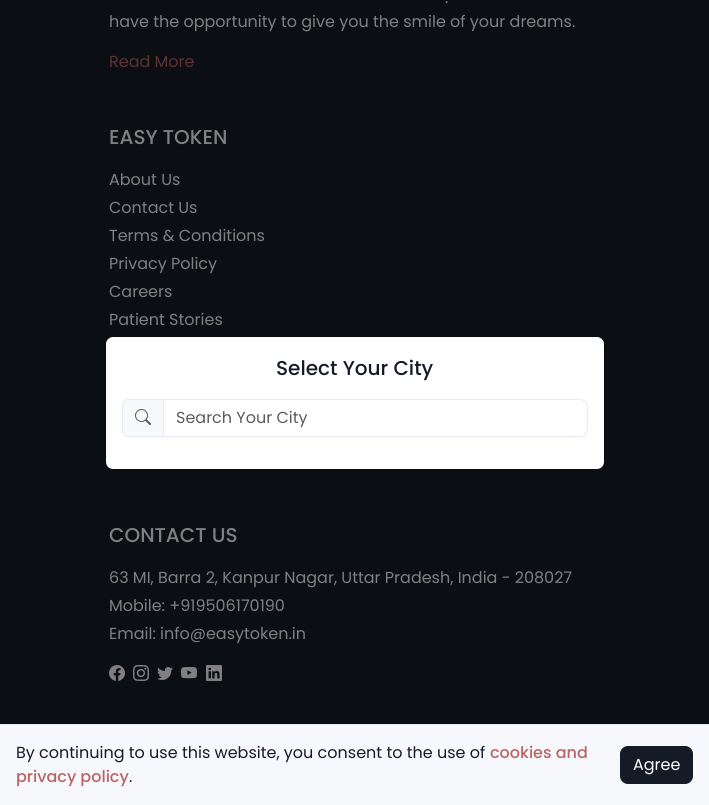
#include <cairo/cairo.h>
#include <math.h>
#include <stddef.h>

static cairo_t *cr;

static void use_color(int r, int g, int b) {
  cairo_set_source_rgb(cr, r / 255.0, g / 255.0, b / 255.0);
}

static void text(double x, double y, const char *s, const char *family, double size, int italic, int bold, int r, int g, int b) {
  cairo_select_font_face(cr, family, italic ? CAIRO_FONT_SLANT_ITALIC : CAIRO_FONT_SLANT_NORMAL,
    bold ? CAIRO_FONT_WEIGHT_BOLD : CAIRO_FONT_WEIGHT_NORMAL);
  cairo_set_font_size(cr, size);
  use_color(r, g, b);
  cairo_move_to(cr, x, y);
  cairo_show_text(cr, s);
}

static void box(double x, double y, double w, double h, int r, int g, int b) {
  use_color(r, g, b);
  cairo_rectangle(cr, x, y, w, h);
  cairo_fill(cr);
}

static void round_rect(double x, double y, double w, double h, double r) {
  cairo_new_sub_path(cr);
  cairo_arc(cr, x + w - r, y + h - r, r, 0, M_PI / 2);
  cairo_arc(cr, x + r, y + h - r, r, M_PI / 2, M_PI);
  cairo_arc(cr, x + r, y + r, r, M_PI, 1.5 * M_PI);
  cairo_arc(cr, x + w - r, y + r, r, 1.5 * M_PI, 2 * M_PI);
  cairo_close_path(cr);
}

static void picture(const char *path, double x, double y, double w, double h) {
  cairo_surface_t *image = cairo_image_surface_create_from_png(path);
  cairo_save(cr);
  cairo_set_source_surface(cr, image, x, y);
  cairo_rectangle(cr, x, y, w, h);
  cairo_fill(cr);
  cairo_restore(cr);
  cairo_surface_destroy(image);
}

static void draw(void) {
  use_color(11, 14, 19);
  cairo_paint(cr);
  picture("img_01.png", 109, 665, 16, 16);
  picture("img_02.png", 133, 665, 16, 16);
  picture("img_03.png", 157, 667, 16, 13);
  picture("img_04.png", 181, 667, 16, 12);
  picture("img_05.png", 206, 665, 16, 16);
  use_color(255, 255, 255);
  round_rect(106, 337, 498, 132, 7);
  cairo_fill(cr);
  round_rect(105.5, 336.5, 499, 133, 7.5);
  cairo_set_source_rgba(cr, 0, 0, 0, 0.18);
  cairo_set_line_width(cr, 1);
  cairo_stroke(cr);
  use_color(248, 249, 250);
  cairo_new_path(cr);
  cairo_move_to(cr, 128, 399.5);
  cairo_line_to(cr, 163.5, 399.5);
  cairo_line_to(cr, 163.5, 436.5);
  cairo_line_to(cr, 128, 436.5);
  cairo_curve_to(cr, 125, 436.5, 122.5, 434, 122.5, 431);
  cairo_line_to(cr, 122.5, 405);
  cairo_curve_to(cr, 122.5, 402, 125, 399.5, 128, 399.5);
  cairo_close_path(cr);
  cairo_fill_preserve(cr);
  use_color(227, 233, 246);
  cairo_stroke(cr);
  picture("img_06.png", 135, 409, 16, 16);
  cairo_new_path(cr);
  cairo_move_to(cr, 163.5, 399.5);
  cairo_line_to(cr, 580, 399.5);
  cairo_curve_to(cr, 584, 399.5, 587.5, 403, 587.5, 407);
  cairo_line_to(cr, 587.5, 429);
  cairo_curve_to(cr, 587.5, 433, 584, 436.5, 580, 436.5);
  cairo_line_to(cr, 163.5, 436.5);
  cairo_close_path(cr);
  cairo_stroke(cr);
  box(0, 725, 709, 80, 246, 248, 252);
  box(0, 724, 709, 1, 227, 233, 246);
  use_color(21, 27, 38);
  round_rect(620.5, 746.5, 72, 37, 7.5);
  cairo_fill_preserve(cr);
  cairo_stroke(cr);
  text(445, 3, ".", "Poppins", 16, 0, 0, 128, 128, 128);
  text(109, 27, "have the opportunity to give you the smile of your dreams.", "Poppins", 16, 0, 0, 128, 128, 128);
  text(109, 67, "Read More", "Poppins", 16, 0, 0, 94, 50, 50);
  text(109, 144, "EASY TOKEN", "Poppins Medium", 20, 0, 0, 128, 128, 128);
  text(109, 185, "About Us", "Poppins", 16, 0, 0, 128, 128, 128);
  text(109, 213, "Contact Us", "Poppins", 16, 0, 0, 128, 128, 128);
  text(109, 241, "Terms & Conditions", "Poppins", 16, 0, 0, 128, 128, 128);
  text(109, 269, "Privacy Policy", "Poppins", 16, 0, 0, 128, 128, 128);
  text(109, 297, "Careers", "Poppins", 16, 0, 0, 128, 128, 128);
  text(109, 325, "Patient Stories", "Poppins", 16, 0, 0, 128, 128, 128);
  text(109, 542, "CONTACT US", "Poppins Medium", 20, 0, 0, 128, 128, 128);
  text(109, 583, "63 MI, Barra 2, Kanpur Nagar, Uttar Pradesh, India - 208027", "Poppins", 16, 0, 0, 128, 128, 128);
  text(109, 611, "Mobile: +919506170190", "Poppins", 16, 0, 0, 128, 128, 128);
  text(109, 639, "Email: info@easytoken.in", "Poppins", 16, 0, 0, 128, 128, 128);
  text(276, 375, "Select Your City", "Poppins Medium", 20, 0, 0, 21, 27, 38);
  text(176, 423, "Search Your City", "Poppins", 16, 0, 0, 89, 92, 95);
  text(16, 758, "By continuing to use this website, you consent to the use of", "Poppins", 16, 0, 0, 21, 27, 38);
  text(490, 758, "cookies and", "Poppins Medium", 16, 0, 0, 187, 100, 100);
  text(16, 782, "privacy policy", "Poppins Medium", 16, 0, 0, 187, 100, 100);
  text(129, 782, ".", "Poppins", 16, 0, 0, 21, 27, 38);
  text(633, 770, "Agree", "Poppins", 16, 0, 0, 255, 255, 255);
}

int main(void) {
  cairo_surface_t *surface = cairo_image_surface_create(CAIRO_FORMAT_RGB24, 709, 805);
  cr = cairo_create(surface);
  cairo_font_options_t *options = cairo_font_options_create();
  cairo_font_options_set_hint_metrics(options, CAIRO_HINT_METRICS_OFF);
  cairo_font_options_set_hint_style(options, CAIRO_HINT_STYLE_NONE);
  cairo_set_font_options(cr, options);
  cairo_set_miter_limit(cr, 4);
  draw();
  cairo_surface_write_to_png(surface, "out.png");
  cairo_font_options_destroy(options);
  cairo_destroy(cr);
  cairo_surface_destroy(surface);
  return 0;
}
